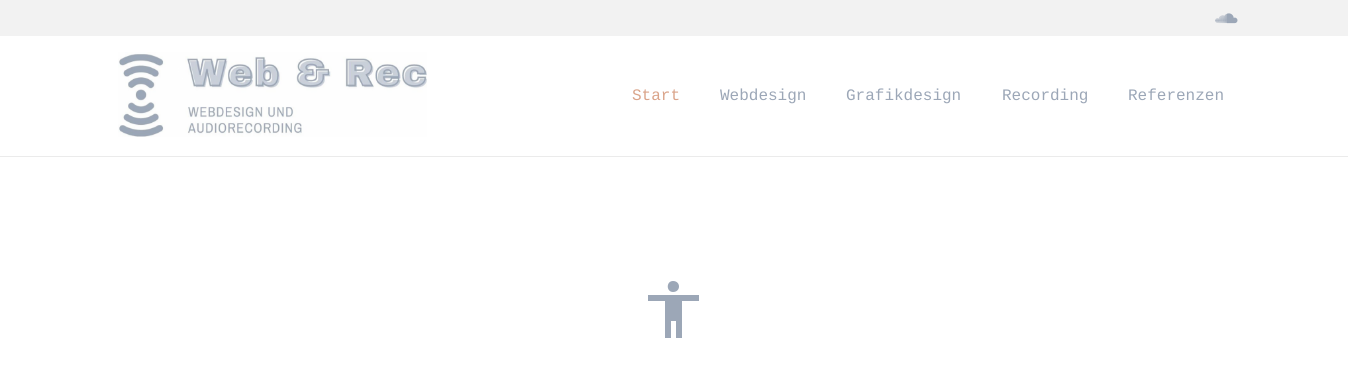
#include <cairo/cairo.h>
#include <math.h>
#include <stddef.h>

static cairo_t *cr;

static void use_color(int r, int g, int b) {
  cairo_set_source_rgb(cr, r / 255.0, g / 255.0, b / 255.0);
}

static void text(double x, double y, const char *s, const char *family, double size, int italic, int bold, int r, int g, int b) {
  cairo_select_font_face(cr, family, italic ? CAIRO_FONT_SLANT_ITALIC : CAIRO_FONT_SLANT_NORMAL,
    bold ? CAIRO_FONT_WEIGHT_BOLD : CAIRO_FONT_WEIGHT_NORMAL);
  cairo_set_font_size(cr, size);
  use_color(r, g, b);
  cairo_move_to(cr, x, y);
  cairo_show_text(cr, s);
}

static void box(double x, double y, double w, double h, int r, int g, int b) {
  use_color(r, g, b);
  cairo_rectangle(cr, x, y, w, h);
  cairo_fill(cr);
}

static void picture(const char *path, double x, double y, double w, double h) {
  cairo_surface_t *image = cairo_image_surface_create_from_png(path);
  cairo_save(cr);
  cairo_set_source_surface(cr, image, x, y);
  cairo_rectangle(cr, x, y, w, h);
  cairo_fill(cr);
  cairo_restore(cr);
  cairo_surface_destroy(image);
}

static void draw(void) {
  use_color(255, 255, 255);
  cairo_paint(cr);
  box(0, 0, 1348, 36, 242, 242, 242);
  picture("img_01.png", 1215, 13, 23, 11);
  box(0, 156, 1348, 1, 235, 235, 235);
  picture("img_02.png", 118, 52, 309, 85);
  use_color(156, 167, 183);
  cairo_new_path(cr);
  cairo_move_to(cr, 673, 281);
  cairo_curve_to(cr, 681, 281, 681, 292, 673, 292);
  cairo_curve_to(cr, 666, 292, 666, 281, 673, 281);
  cairo_close_path(cr);
  cairo_move_to(cr, 699, 301);
  cairo_line_to(cr, 682, 301);
  cairo_line_to(cr, 682, 338);
  cairo_line_to(cr, 676, 338);
  cairo_line_to(cr, 676, 321);
  cairo_line_to(cr, 671, 321);
  cairo_line_to(cr, 671, 338);
  cairo_line_to(cr, 665, 338);
  cairo_line_to(cr, 665, 301);
  cairo_line_to(cr, 648, 301);
  cairo_line_to(cr, 648, 295);
  cairo_line_to(cr, 699, 295);
  cairo_close_path(cr);
  cairo_fill(cr);
  text(632, 100, "Start", "Liberation Mono", 16, 0, 0, 218, 164, 138);
  text(720, 100, "Webdesign", "Liberation Mono", 16, 0, 0, 156, 167, 183);
  text(846, 100, "Grafikdesign", "Liberation Mono", 16, 0, 0, 156, 167, 183);
  text(1002, 100, "Recording", "Liberation Mono", 16, 0, 0, 156, 167, 183);
  text(1128, 100, "Referenzen", "Liberation Mono", 16, 0, 0, 156, 167, 183);
}

int main(void) {
  cairo_surface_t *surface = cairo_image_surface_create(CAIRO_FORMAT_RGB24, 1348, 386);
  cr = cairo_create(surface);
  cairo_font_options_t *options = cairo_font_options_create();
  cairo_font_options_set_hint_metrics(options, CAIRO_HINT_METRICS_OFF);
  cairo_font_options_set_hint_style(options, CAIRO_HINT_STYLE_NONE);
  cairo_set_font_options(cr, options);
  cairo_set_miter_limit(cr, 4);
  draw();
  cairo_surface_write_to_png(surface, "out.png");
  cairo_font_options_destroy(options);
  cairo_destroy(cr);
  cairo_surface_destroy(surface);
  return 0;
}
